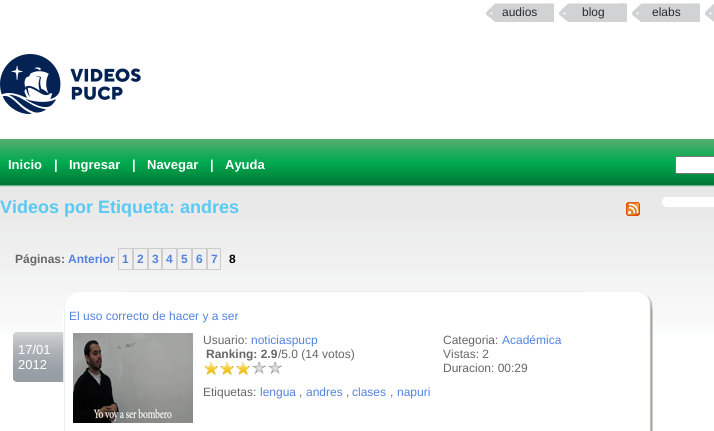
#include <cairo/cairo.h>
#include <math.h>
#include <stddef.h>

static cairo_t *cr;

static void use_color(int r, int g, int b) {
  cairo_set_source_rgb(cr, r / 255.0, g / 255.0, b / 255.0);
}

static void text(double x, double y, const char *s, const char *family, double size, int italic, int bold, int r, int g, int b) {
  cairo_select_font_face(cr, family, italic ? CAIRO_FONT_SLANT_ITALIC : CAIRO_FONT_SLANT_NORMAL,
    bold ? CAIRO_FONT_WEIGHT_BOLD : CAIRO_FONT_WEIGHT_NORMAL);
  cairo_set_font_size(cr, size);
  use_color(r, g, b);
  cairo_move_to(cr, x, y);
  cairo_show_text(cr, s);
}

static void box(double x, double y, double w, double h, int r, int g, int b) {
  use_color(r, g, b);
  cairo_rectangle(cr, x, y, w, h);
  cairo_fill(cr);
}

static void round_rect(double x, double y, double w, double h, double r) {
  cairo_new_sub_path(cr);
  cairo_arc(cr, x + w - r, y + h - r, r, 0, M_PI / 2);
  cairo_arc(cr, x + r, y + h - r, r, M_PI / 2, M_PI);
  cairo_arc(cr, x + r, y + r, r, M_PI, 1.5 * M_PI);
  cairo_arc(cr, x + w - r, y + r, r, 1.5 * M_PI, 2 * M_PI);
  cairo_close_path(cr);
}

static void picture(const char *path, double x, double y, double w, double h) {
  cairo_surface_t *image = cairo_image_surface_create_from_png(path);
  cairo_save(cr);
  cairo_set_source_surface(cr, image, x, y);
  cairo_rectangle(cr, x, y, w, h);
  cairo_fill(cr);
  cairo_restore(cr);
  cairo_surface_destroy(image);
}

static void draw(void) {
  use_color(255, 255, 255);
  cairo_paint(cr);
  picture("img_01.png", 486, 3, 68, 19);
  picture("img_01.png", 559, 3, 68, 19);
  picture("img_01.png", 632, 3, 68, 19);
  picture("img_02.png", 705, 4, 9, 18);
  picture("img_03.png", 0, 54, 141, 60);
  picture("img_04.png", 0, 139, 714, 48);
  use_color(255, 255, 255);
  round_rect(675.5, 156.5, 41, 17, 1.5);
  cairo_fill_preserve(cr);
  use_color(118, 118, 118);
  cairo_set_line_width(cr, 1);
  cairo_stroke(cr);
  picture("img_05.png", 0, 187, 714, 146);
  box(626, 202, 14, 14, 255, 255, 255);
  picture("img_06.png", 626, 202, 14, 14);
  round_rect(662, 197, 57, 10, 5);
  cairo_fill(cr);
  cairo_rectangle(cr, 118.5, 248.5, 14, 21);
  use_color(205, 205, 205);
  cairo_stroke(cr);
  cairo_rectangle(cr, 133.5, 248.5, 14, 21);
  cairo_stroke(cr);
  cairo_rectangle(cr, 148.5, 248.5, 13, 21);
  cairo_stroke(cr);
  cairo_rectangle(cr, 162.5, 248.5, 14, 21);
  cairo_stroke(cr);
  cairo_rectangle(cr, 177.5, 248.5, 14, 21);
  cairo_stroke(cr);
  cairo_rectangle(cr, 192.5, 248.5, 14, 21);
  cairo_stroke(cr);
  cairo_rectangle(cr, 207.5, 248.5, 13, 21);
  cairo_stroke(cr);
  picture("img_09.png", 63, 309, 590, 122);
  picture("img_07.png", 13, 332, 51, 50);
  picture("img_08.png", 64, 291, 589, 18);
  picture("img_10.png", 73, 333, 120, 90);
  picture("img_11.png", 205, 362, 77, 13);
  picture("img_12.png", 204, 362, 46, 14);
  text(502, 16, "audios", "Liberation Sans", 12, 0, 0, 41, 43, 47);
  text(582, 16, "blog", "Liberation Sans", 12, 0, 0, 41, 43, 47);
  text(652, 16, "elabs", "Liberation Sans", 12, 0, 0, 41, 43, 47);
  text(8, 169, "Inicio", "Liberation Sans", 13, 0, 1, 255, 255, 255);
  text(54, 169, "|", "Liberation Sans", 13, 0, 1, 255, 255, 255);
  text(69, 169, "Ingresar", "Liberation Sans", 13, 0, 1, 255, 255, 255);
  text(132, 169, "|", "Liberation Sans", 13, 0, 1, 255, 255, 255);
  text(147, 169, "Navegar", "Liberation Sans", 13, 0, 1, 255, 255, 255);
  text(210, 169, "|", "Liberation Sans", 13, 0, 1, 255, 255, 255);
  text(225, 169, "Ayuda", "Liberation Sans", 13, 0, 1, 255, 255, 255);
  text(0, 213, "Videos por Etiqueta: andres", "Liberation Sans", 18, 0, 1, 88, 202, 244);
  text(15, 263, "Páginas:", "Liberation Sans", 12, 0, 1, 102, 102, 102);
  text(68, 263, "Anterior", "Liberation Sans", 12, 0, 1, 83, 131, 223);
  text(122, 263, "1", "Liberation Sans", 12, 0, 1, 83, 131, 223);
  text(137, 263, "2", "Liberation Sans", 12, 0, 1, 83, 131, 223);
  text(152, 263, "3", "Liberation Sans", 12, 0, 1, 83, 131, 223);
  text(166, 263, "4", "Liberation Sans", 12, 0, 1, 83, 131, 223);
  text(181, 263, "5", "Liberation Sans", 12, 0, 1, 83, 131, 223);
  text(196, 263, "6", "Liberation Sans", 12, 0, 1, 83, 131, 223);
  text(211, 263, "7", "Liberation Sans", 12, 0, 1, 83, 131, 223);
  text(229, 263, "8", "Liberation Sans", 12, 0, 1, 0, 0, 0);
  text(18, 354, "17/01", "Liberation Sans", 13, 0, 0, 255, 255, 255);
  text(18, 369, "2012", "Liberation Sans", 13, 0, 0, 255, 255, 255);
  text(69, 320, "El uso correcto de hacer y a ser", "Liberation Sans", 12, 0, 0, 83, 131, 223);
  text(203, 344, "Usuario:", "Liberation Sans", 12, 0, 0, 102, 102, 102);
  text(251, 344, "noticiaspucp", "Liberation Sans", 12, 0, 0, 83, 131, 223);
  text(206, 358, "Ranking: 2.9", "Liberation Sans", 12, 0, 1, 102, 102, 102);
  text(278, 358, "/5.0 (14 votos)", "Liberation Sans", 12, 0, 0, 102, 102, 102);
  text(203, 396, "Etiquetas:", "Liberation Sans", 12, 0, 0, 102, 102, 102);
  text(260, 396, "lengua", "Liberation Sans", 12, 0, 0, 83, 131, 223);
  text(299, 396, ",", "Liberation Sans", 12, 0, 0, 102, 102, 102);
  text(306, 396, "andres", "Liberation Sans", 12, 0, 0, 83, 131, 223);
  text(346, 396, ",", "Liberation Sans", 12, 0, 0, 102, 102, 102);
  text(352, 396, "clases", "Liberation Sans", 12, 0, 0, 83, 131, 223);
  text(390, 396, ",", "Liberation Sans", 12, 0, 0, 102, 102, 102);
  text(397, 396, "napuri", "Liberation Sans", 12, 0, 0, 83, 131, 223);
  text(443, 344, "Categoria:", "Liberation Sans", 12, 0, 0, 102, 102, 102);
  text(502, 344, "Académica", "Liberation Sans", 12, 0, 0, 83, 131, 223);
  text(443, 358, "Vistas: 2", "Liberation Sans", 12, 0, 0, 102, 102, 102);
  text(443, 372, "Duracion: 00:29", "Liberation Sans", 12, 0, 0, 102, 102, 102);
}

int main(void) {
  cairo_surface_t *surface = cairo_image_surface_create(CAIRO_FORMAT_RGB24, 714, 431);
  cr = cairo_create(surface);
  cairo_font_options_t *options = cairo_font_options_create();
  cairo_font_options_set_hint_metrics(options, CAIRO_HINT_METRICS_OFF);
  cairo_font_options_set_hint_style(options, CAIRO_HINT_STYLE_NONE);
  cairo_set_font_options(cr, options);
  cairo_set_miter_limit(cr, 4);
  draw();
  cairo_surface_write_to_png(surface, "out.png");
  cairo_font_options_destroy(options);
  cairo_destroy(cr);
  cairo_surface_destroy(surface);
  return 0;
}
